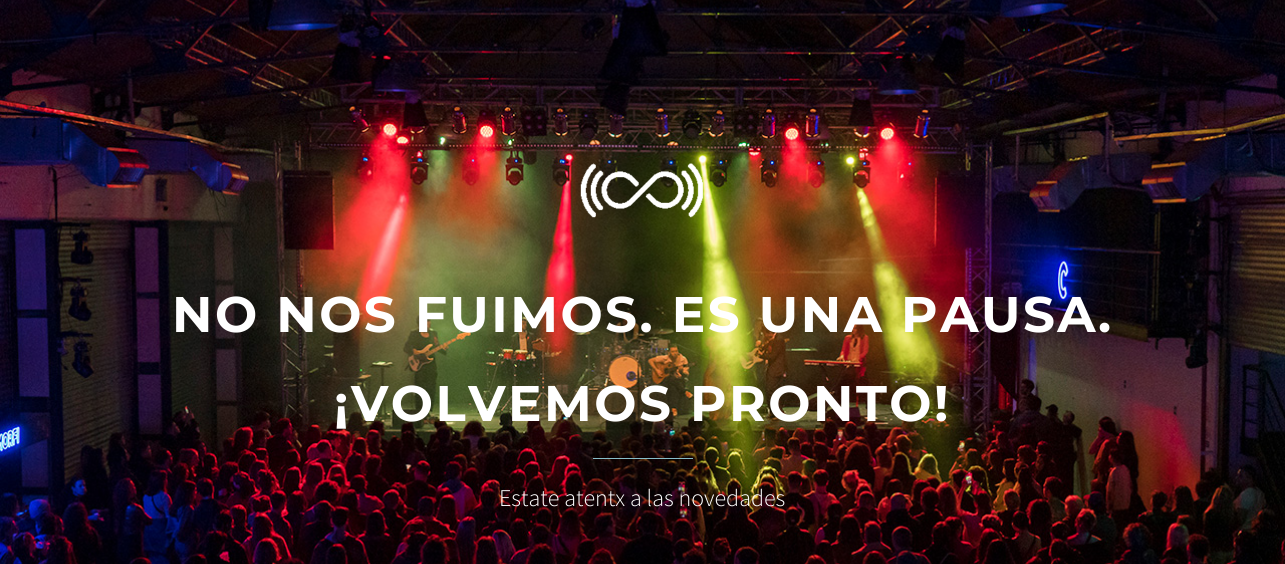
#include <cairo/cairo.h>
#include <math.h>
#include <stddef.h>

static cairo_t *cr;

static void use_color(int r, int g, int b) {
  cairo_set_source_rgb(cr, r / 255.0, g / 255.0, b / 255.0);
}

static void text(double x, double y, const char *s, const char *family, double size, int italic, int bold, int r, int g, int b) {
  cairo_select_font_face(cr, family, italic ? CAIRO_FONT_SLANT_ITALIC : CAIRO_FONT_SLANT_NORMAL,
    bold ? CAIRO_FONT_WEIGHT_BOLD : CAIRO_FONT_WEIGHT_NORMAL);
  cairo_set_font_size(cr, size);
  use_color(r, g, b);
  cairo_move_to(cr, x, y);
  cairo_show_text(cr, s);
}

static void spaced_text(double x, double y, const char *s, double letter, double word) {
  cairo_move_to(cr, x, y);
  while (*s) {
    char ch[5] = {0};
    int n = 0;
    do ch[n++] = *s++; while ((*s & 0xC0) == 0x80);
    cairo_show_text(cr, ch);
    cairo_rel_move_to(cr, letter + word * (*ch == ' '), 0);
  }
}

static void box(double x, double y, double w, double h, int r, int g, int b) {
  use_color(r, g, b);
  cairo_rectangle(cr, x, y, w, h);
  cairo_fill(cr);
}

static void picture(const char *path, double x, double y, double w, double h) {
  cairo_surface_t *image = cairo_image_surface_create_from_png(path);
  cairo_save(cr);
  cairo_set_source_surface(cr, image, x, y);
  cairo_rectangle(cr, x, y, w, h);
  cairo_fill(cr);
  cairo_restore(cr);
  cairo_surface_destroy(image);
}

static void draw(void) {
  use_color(255, 255, 255);
  cairo_paint(cr);
  picture("img_01.png", 0, 0, 1285, 564);
  picture("img_02.png", 580, 163, 124, 55);
  box(593, 458, 100, 1, 136, 190, 201);
  cairo_select_font_face(cr, "Montserrat", CAIRO_FONT_SLANT_NORMAL, CAIRO_FONT_WEIGHT_BOLD);
  cairo_set_font_size(cr, 50);
  use_color(255, 255, 255);
  spaced_text(172, 332, "NO NOS FUIMOS. ES UNA PAUSA.", 2.5, 0);
  spaced_text(334, 421, "¡VOLVEMOS PRONTO!", 2.5, 0);
  text(499, 506, "Estate atentx a las novedades", "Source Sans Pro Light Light", 24, 0, 0, 255, 255, 255);
}

int main(void) {
  cairo_surface_t *surface = cairo_image_surface_create(CAIRO_FORMAT_RGB24, 1285, 564);
  cr = cairo_create(surface);
  cairo_font_options_t *options = cairo_font_options_create();
  cairo_font_options_set_hint_metrics(options, CAIRO_HINT_METRICS_OFF);
  cairo_font_options_set_hint_style(options, CAIRO_HINT_STYLE_NONE);
  cairo_set_font_options(cr, options);
  cairo_set_miter_limit(cr, 4);
  draw();
  cairo_surface_write_to_png(surface, "out.png");
  cairo_font_options_destroy(options);
  cairo_destroy(cr);
  cairo_surface_destroy(surface);
  return 0;
}
